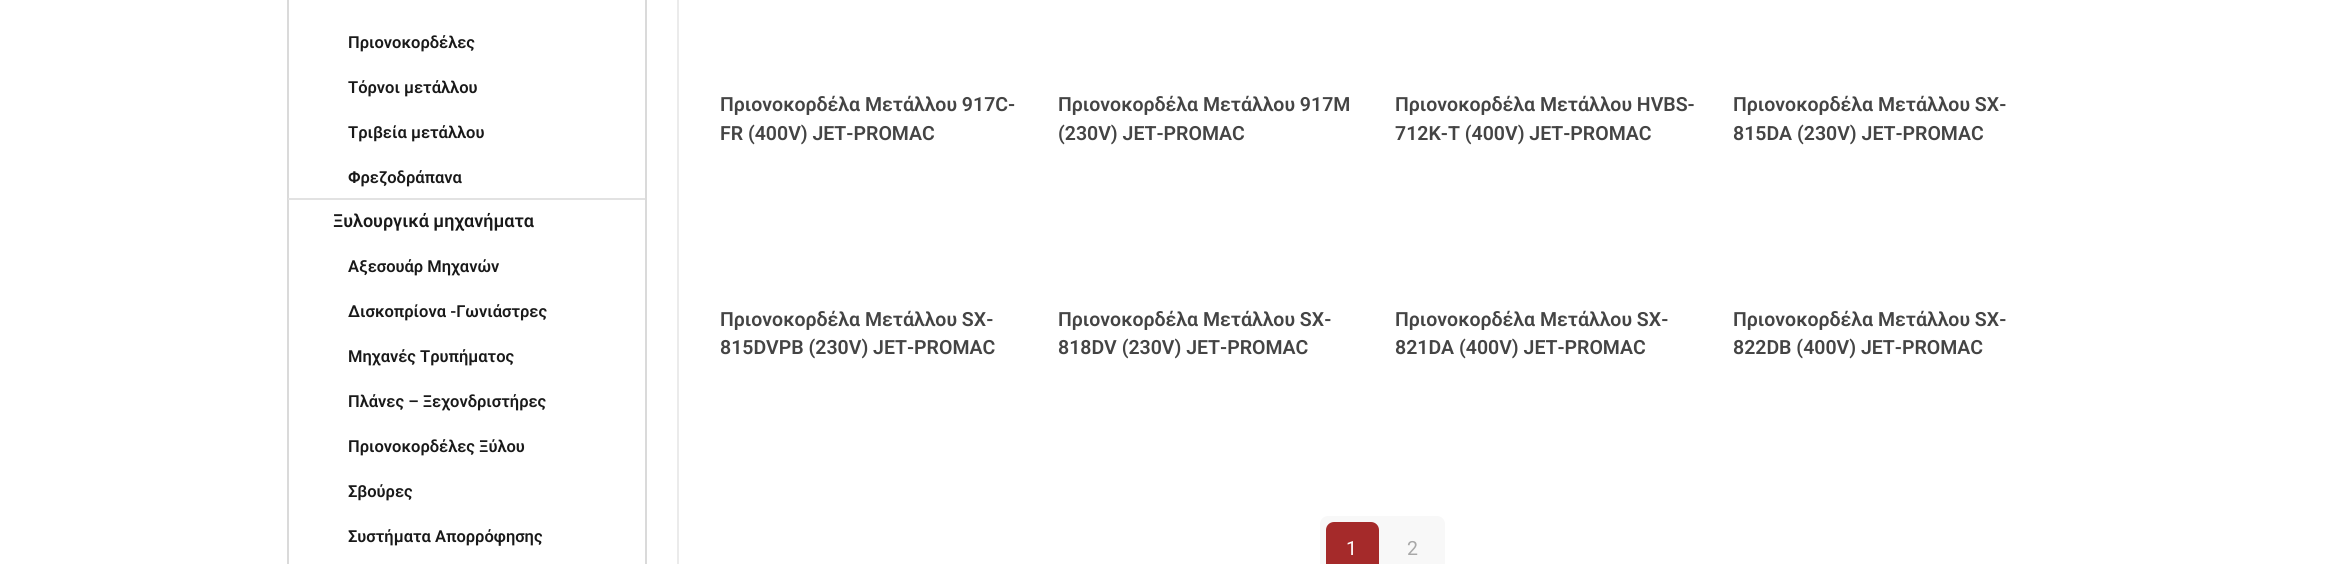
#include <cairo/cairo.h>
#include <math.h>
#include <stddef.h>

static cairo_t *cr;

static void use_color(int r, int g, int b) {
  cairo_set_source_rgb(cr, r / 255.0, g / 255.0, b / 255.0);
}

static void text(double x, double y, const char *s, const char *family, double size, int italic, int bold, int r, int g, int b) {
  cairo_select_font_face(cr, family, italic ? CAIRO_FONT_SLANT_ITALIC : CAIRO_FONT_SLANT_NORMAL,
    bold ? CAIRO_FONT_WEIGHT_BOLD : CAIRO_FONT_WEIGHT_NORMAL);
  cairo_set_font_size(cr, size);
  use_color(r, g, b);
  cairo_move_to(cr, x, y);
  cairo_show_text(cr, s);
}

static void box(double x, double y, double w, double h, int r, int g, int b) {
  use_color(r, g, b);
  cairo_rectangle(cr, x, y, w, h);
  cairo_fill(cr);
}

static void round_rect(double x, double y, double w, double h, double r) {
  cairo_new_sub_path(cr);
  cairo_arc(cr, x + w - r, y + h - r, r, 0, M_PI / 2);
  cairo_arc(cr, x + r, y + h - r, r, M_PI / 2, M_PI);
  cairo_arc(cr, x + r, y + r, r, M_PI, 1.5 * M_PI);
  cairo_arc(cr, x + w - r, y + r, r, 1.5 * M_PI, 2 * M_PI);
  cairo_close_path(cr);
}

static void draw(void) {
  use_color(255, 255, 255);
  cairo_paint(cr);
  box(677, 0, 2, 564, 235, 235, 235);
  cairo_rectangle(cr, 288, -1, 358, 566);
  use_color(218, 218, 218);
  cairo_stroke(cr);
  box(288, 198, 357, 2, 226, 226, 226);
  use_color(248, 248, 248);
  round_rect(1320, 516, 125, 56, 8);
  cairo_fill(cr);
  use_color(165, 42, 42);
  round_rect(1326, 522, 53, 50, 8);
  cairo_fill(cr);
  text(348, 48, "Πριονοκορδέλες", "Roboto SemiBold", 16.5, 0, 0, 25, 25, 25);
  text(348, 93, "Τόρνοι μετάλλου", "Roboto SemiBold", 16.5, 0, 0, 25, 25, 25);
  text(348, 138, "Τριβεία μετάλλου", "Roboto SemiBold", 16.5, 0, 0, 25, 25, 25);
  text(348, 183, "Φρεζοδράπανα", "Roboto SemiBold", 16.5, 0, 0, 25, 25, 25);
  text(333, 227, "Ξυλουργικά μηχανήματα", "Roboto SemiBold", 18, 0, 0, 25, 25, 25);
  text(348, 272, "Αξεσουάρ Μηχανών", "Roboto SemiBold", 16.5, 0, 0, 25, 25, 25);
  text(348, 317, "Δισκοπρίονα -Γωνιάστρες", "Roboto SemiBold", 16.5, 0, 0, 25, 25, 25);
  text(348, 362, "Μηχανές Τρυπήματος", "Roboto SemiBold", 16.5, 0, 0, 25, 25, 25);
  text(348, 407, "Πλάνες – Ξεχονδριστήρες", "Roboto SemiBold", 16.5, 0, 0, 25, 25, 25);
  text(348, 452, "Πριονοκορδέλες Ξύλου", "Roboto SemiBold", 16.5, 0, 0, 25, 25, 25);
  text(348, 497, "Σβούρες", "Roboto SemiBold", 16.5, 0, 0, 25, 25, 25);
  text(348, 542, "Συστήματα Απορρόφησης", "Roboto SemiBold", 16.5, 0, 0, 25, 25, 25);
  text(720, 111, "Πριονοκορδέλα Μετάλλου 917C-", "Roboto SemiBold", 19.5, 0, 0, 68, 68, 68);
  text(720, 140, "FR (400V) JET-PROMAC", "Roboto SemiBold", 19.5, 0, 0, 68, 68, 68);
  text(1058, 111, "Πριονοκορδέλα Μετάλλου 917M", "Roboto SemiBold", 19.5, 0, 0, 68, 68, 68);
  text(1058, 140, "(230V) JET-PROMAC", "Roboto SemiBold", 19.5, 0, 0, 68, 68, 68);
  text(1395, 111, "Πριονοκορδέλα Μετάλλου HVBS-", "Roboto SemiBold", 19.5, 0, 0, 68, 68, 68);
  text(1395, 140, "712K-T (400V) JET-PROMAC", "Roboto SemiBold", 19.5, 0, 0, 68, 68, 68);
  text(1733, 111, "Πριονοκορδέλα Μετάλλου SX-", "Roboto SemiBold", 19.5, 0, 0, 68, 68, 68);
  text(1733, 140, "815DA (230V) JET-PROMAC", "Roboto SemiBold", 19.5, 0, 0, 68, 68, 68);
  text(720, 326, "Πριονοκορδέλα Μετάλλου SX-", "Roboto SemiBold", 19.5, 0, 0, 68, 68, 68);
  text(720, 354, "815DVPB (230V) JET-PROMAC", "Roboto SemiBold", 19.5, 0, 0, 68, 68, 68);
  text(1058, 326, "Πριονοκορδέλα Μετάλλου SX-", "Roboto SemiBold", 19.5, 0, 0, 68, 68, 68);
  text(1058, 354, "818DV (230V) JET-PROMAC", "Roboto SemiBold", 19.5, 0, 0, 68, 68, 68);
  text(1395, 326, "Πριονοκορδέλα Μετάλλου SX-", "Roboto SemiBold", 19.5, 0, 0, 68, 68, 68);
  text(1395, 354, "821DA (400V) JET-PROMAC", "Roboto SemiBold", 19.5, 0, 0, 68, 68, 68);
  text(1733, 326, "Πριονοκορδέλα Μετάλλου SX-", "Roboto SemiBold", 19.5, 0, 0, 68, 68, 68);
  text(1733, 354, "822DB (400V) JET-PROMAC", "Roboto SemiBold", 19.5, 0, 0, 68, 68, 68);
  text(1346, 555, "1", "Roboto", 19.5, 0, 0, 255, 255, 255);
  text(1407, 555, "2", "Roboto", 19.5, 0, 0, 168, 168, 168);
}

int main(void) {
  cairo_surface_t *surface = cairo_image_surface_create(CAIRO_FORMAT_RGB24, 2342, 564);
  cr = cairo_create(surface);
  cairo_font_options_t *options = cairo_font_options_create();
  cairo_font_options_set_hint_metrics(options, CAIRO_HINT_METRICS_OFF);
  cairo_font_options_set_hint_style(options, CAIRO_HINT_STYLE_NONE);
  cairo_set_font_options(cr, options);
  cairo_set_miter_limit(cr, 4);
  draw();
  cairo_surface_write_to_png(surface, "out.png");
  cairo_font_options_destroy(options);
  cairo_destroy(cr);
  cairo_surface_destroy(surface);
  return 0;
}
